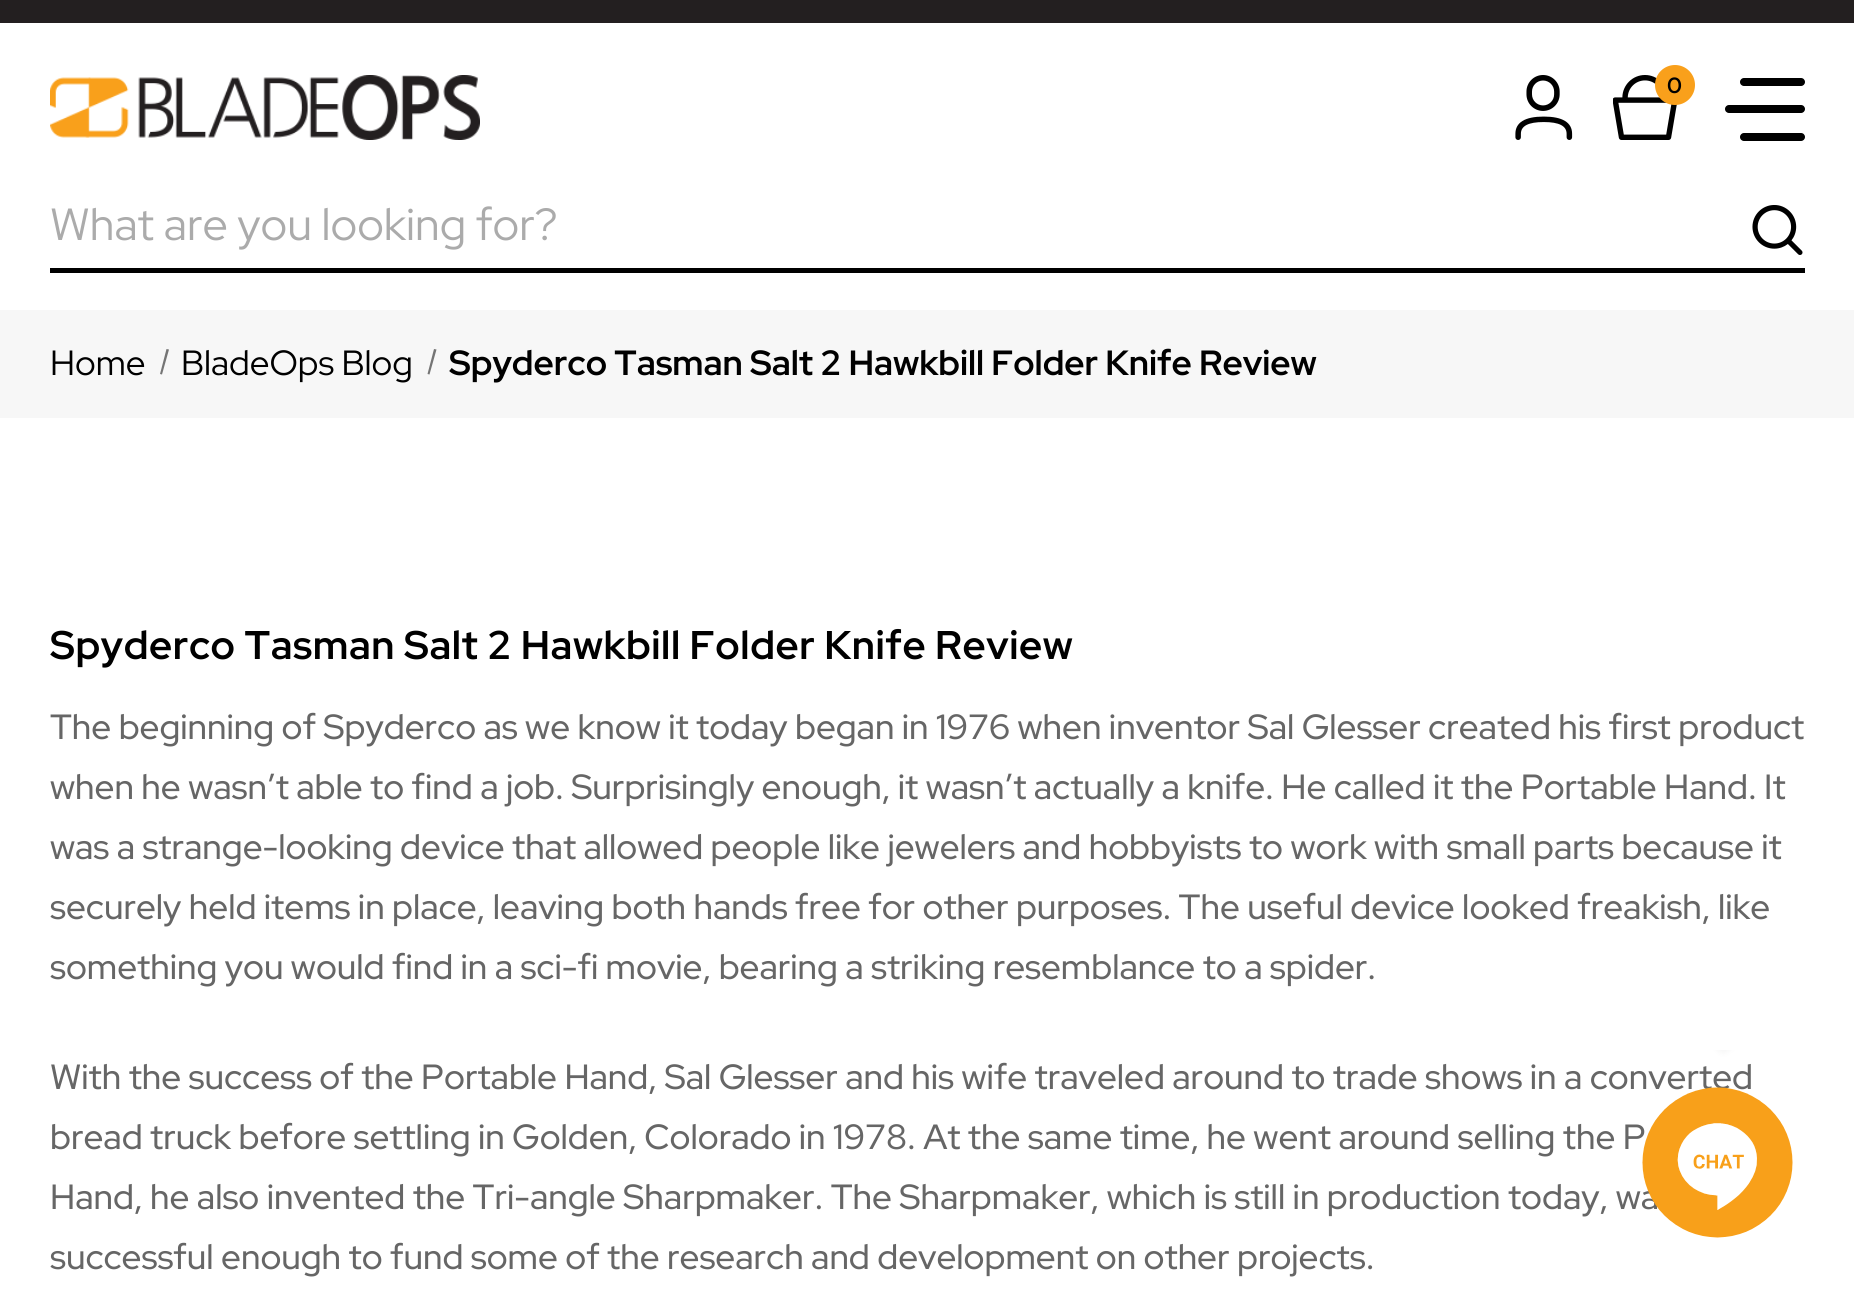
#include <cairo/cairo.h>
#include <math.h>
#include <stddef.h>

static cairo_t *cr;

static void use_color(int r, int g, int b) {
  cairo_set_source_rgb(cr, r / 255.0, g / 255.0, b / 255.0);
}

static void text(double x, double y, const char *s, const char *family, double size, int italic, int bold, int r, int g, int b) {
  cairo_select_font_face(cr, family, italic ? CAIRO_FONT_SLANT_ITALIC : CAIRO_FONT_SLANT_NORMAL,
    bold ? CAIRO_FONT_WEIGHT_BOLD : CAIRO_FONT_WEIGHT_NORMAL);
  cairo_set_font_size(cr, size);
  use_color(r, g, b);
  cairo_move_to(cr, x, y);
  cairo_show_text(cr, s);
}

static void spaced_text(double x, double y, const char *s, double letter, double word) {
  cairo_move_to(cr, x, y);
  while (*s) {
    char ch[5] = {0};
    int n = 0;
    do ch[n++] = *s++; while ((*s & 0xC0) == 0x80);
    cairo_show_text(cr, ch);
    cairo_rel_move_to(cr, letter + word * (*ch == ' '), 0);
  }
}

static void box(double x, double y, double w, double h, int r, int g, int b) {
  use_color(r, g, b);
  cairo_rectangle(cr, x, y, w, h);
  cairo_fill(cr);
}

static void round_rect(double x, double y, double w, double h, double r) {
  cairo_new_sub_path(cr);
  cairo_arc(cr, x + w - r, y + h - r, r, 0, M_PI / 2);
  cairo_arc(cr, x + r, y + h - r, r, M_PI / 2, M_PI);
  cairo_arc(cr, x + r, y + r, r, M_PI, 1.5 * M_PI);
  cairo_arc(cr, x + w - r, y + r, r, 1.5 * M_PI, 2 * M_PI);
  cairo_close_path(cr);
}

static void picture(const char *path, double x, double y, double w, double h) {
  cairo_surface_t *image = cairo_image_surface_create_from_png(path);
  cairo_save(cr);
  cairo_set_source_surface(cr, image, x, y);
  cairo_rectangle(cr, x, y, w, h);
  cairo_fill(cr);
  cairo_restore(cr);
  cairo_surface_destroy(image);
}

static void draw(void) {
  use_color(255, 255, 255);
  cairo_paint(cr);
  box(0, 0, 1854, 23, 35, 31, 32);
  picture("img_01.png", 50, 75, 430, 65);
  picture("img_02.png", 1515, 75, 58, 65);
  picture("img_03.png", 1613, 75, 64, 65);
  use_color(249, 160, 27);
  cairo_arc(cr, 1675, 85, 20, 0, 2 * M_PI);
  cairo_fill(cr);
  use_color(0, 0, 0);
  round_rect(1740, 78, 65, 8, 4);
  cairo_fill(cr);
  round_rect(1725, 105, 80, 8, 4);
  cairo_fill(cr);
  round_rect(1740, 133, 65, 8, 4);
  cairo_fill(cr);
  box(50, 268, 1755, 5, 0, 0, 0);
  picture("img_04.png", 1752, 205, 51, 50);
  box(0, 310, 1854, 108, 247, 247, 247);
  use_color(117, 117, 117);
  cairo_new_path(cr);
  cairo_move_to(cr, 166.5, 349);
  cairo_line_to(cr, 169, 349.5);
  cairo_line_to(cr, 162, 374.5);
  cairo_line_to(cr, 160, 374);
  cairo_close_path(cr);
  cairo_fill(cr);
  cairo_new_path(cr);
  cairo_move_to(cr, 434, 349);
  cairo_line_to(cr, 436.5, 349.5);
  cairo_line_to(cr, 429.5, 374.5);
  cairo_line_to(cr, 427.5, 374);
  cairo_close_path(cr);
  cairo_fill(cr);
  text(1667, 93, "0", "Red Hat Display", 22, 0, 1, 0, 0, 0);
  text(50, 240, "What are you looking for?", "Red Hat Display", 45, 0, 0, 171, 171, 171);
  text(50, 375, "Home", "Red Hat Display", 35, 0, 0, 0, 0, 0);
  text(181, 375, "BladeOps Blog", "Red Hat Display", 35, 0, 0, 0, 0, 0);
  text(449, 375, "Spyderco Tasman Salt 2 Hawkbill Folder Knife Review", "Red Hat Display", 35, 0, 1, 0, 0, 0);
  cairo_set_font_size(cr, 40);
  spaced_text(50, 659, "Spyderco Tasman Salt 2 Hawkbill Folder Knife Review", 0.62, 0);
  text(50, 739, "The beginning of Spyderco as we know it today began in 1976 when inventor Sal Glesser created his first product", "Red Hat Display Medium", 35, 0, 0, 102, 102, 102);
  text(50, 799, "when he wasn’t able to find a job. Surprisingly enough, it wasn’t actually a knife. He called it the Portable Hand. It", "Red Hat Display Medium", 35, 0, 0, 102, 102, 102);
  text(50, 859, "was a strange-looking device that allowed people like jewelers and hobbyists to work with small parts because it", "Red Hat Display Medium", 35, 0, 0, 102, 102, 102);
  text(50, 919, "securely held items in place, leaving both hands free for other purposes. The useful device looked freakish, like", "Red Hat Display Medium", 35, 0, 0, 102, 102, 102);
  text(50, 979, "something you would find in a sci-fi movie, bearing a striking resemblance to a spider.", "Red Hat Display Medium", 35, 0, 0, 102, 102, 102);
  text(50, 1089, "With the success of the Portable Hand, Sal Glesser and his wife traveled around to trade shows in a converted", "Red Hat Display Medium", 35, 0, 0, 102, 102, 102);
  text(50, 1149, "bread truck before settling in Golden, Colorado in 1978. At the same time, he went around selling the P", "Red Hat Display Medium", 35, 0, 0, 102, 102, 102);
  text(50, 1209, "Hand, he also invented the Tri-angle Sharpmaker. The Sharpmaker, which is still in production today, wa", "Red Hat Display Medium", 35, 0, 0, 102, 102, 102);
  text(50, 1269, "successful enough to fund some of the research and development on other projects.", "Red Hat Display Medium", 35, 0, 0, 102, 102, 102);
  picture("img_05.png", 1642, 1050, 151, 188);
}

int main(void) {
  cairo_surface_t *surface = cairo_image_surface_create(CAIRO_FORMAT_RGB24, 1854, 1299);
  cr = cairo_create(surface);
  cairo_font_options_t *options = cairo_font_options_create();
  cairo_font_options_set_hint_metrics(options, CAIRO_HINT_METRICS_OFF);
  cairo_font_options_set_hint_style(options, CAIRO_HINT_STYLE_NONE);
  cairo_set_font_options(cr, options);
  cairo_set_miter_limit(cr, 4);
  draw();
  cairo_surface_write_to_png(surface, "out.png");
  cairo_font_options_destroy(options);
  cairo_destroy(cr);
  cairo_surface_destroy(surface);
  return 0;
}
